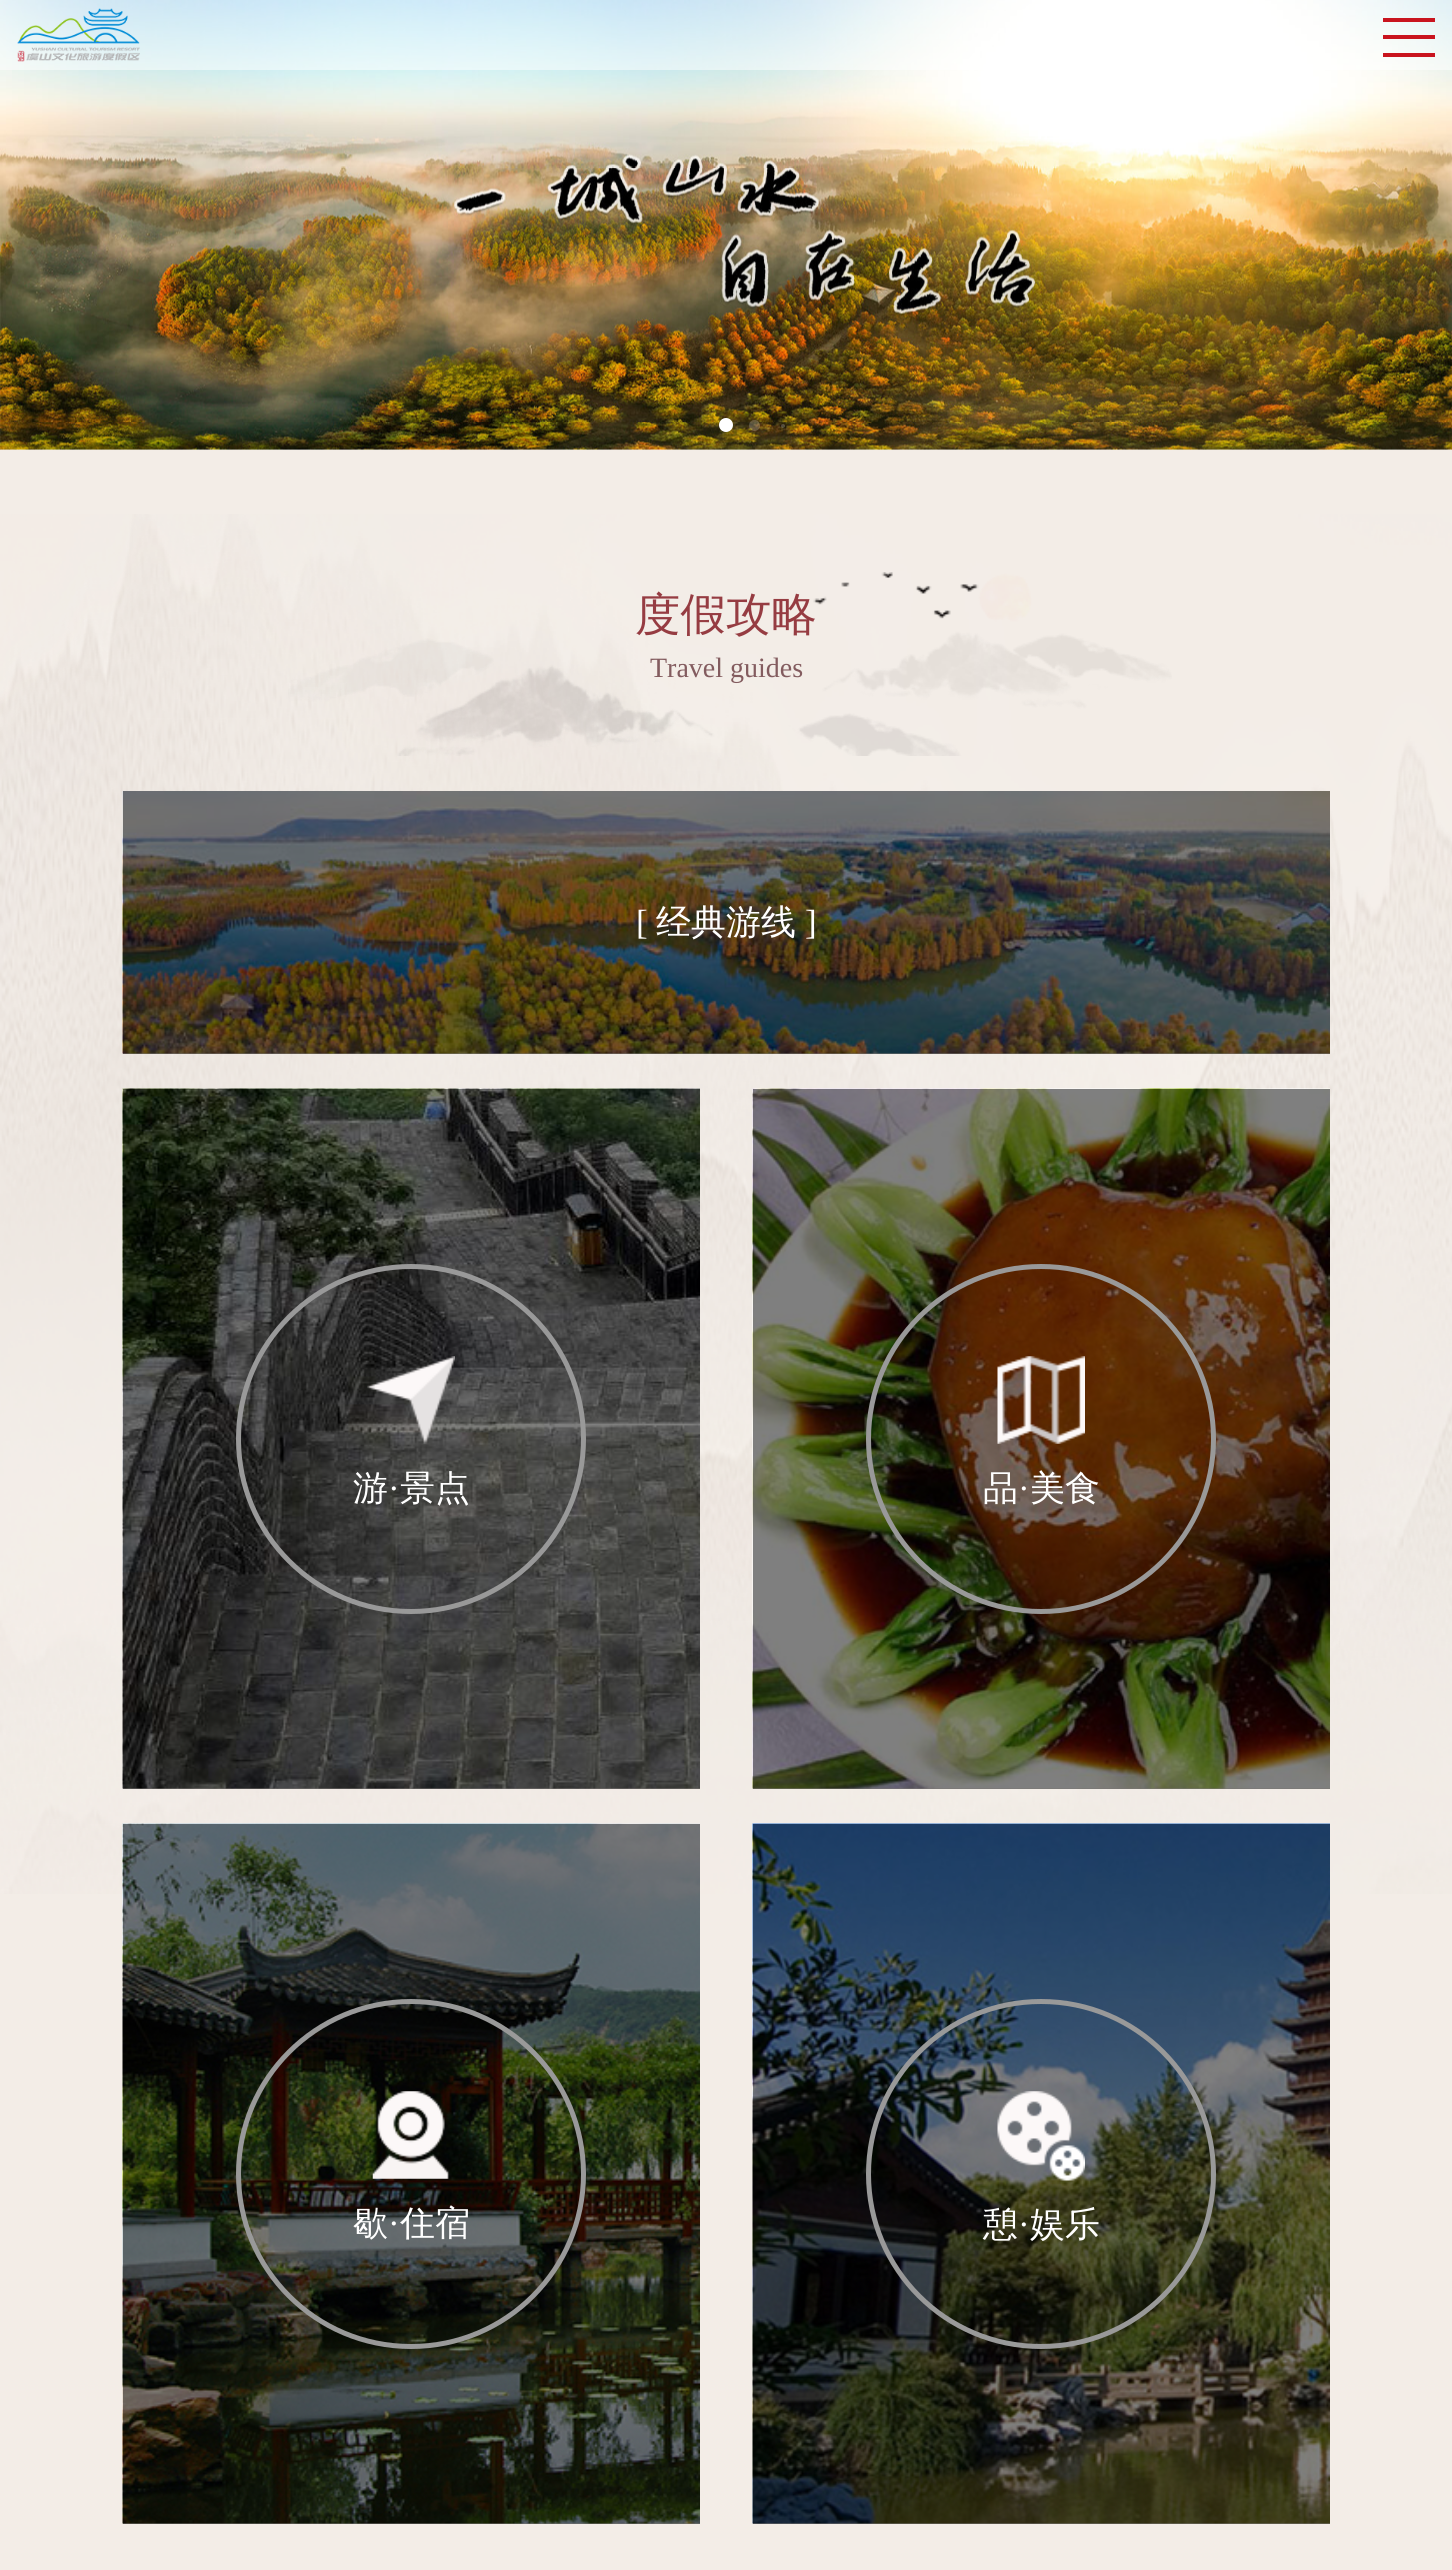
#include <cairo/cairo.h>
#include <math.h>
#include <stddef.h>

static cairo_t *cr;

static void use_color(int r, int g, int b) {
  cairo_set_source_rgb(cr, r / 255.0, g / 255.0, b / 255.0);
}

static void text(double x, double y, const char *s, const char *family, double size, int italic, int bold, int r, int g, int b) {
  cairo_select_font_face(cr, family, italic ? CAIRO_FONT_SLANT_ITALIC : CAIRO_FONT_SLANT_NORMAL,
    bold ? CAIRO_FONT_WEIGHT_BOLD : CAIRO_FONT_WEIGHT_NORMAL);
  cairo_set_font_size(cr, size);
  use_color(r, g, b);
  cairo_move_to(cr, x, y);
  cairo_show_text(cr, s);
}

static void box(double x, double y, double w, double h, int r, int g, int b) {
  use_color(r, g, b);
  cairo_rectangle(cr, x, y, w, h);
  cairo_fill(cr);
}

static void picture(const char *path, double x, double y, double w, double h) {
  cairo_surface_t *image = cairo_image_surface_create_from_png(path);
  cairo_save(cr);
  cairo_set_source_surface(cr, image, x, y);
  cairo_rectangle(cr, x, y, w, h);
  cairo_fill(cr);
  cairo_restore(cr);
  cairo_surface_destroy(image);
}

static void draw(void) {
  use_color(243, 237, 231);
  cairo_paint(cr);
  box(0, 449, 1452, 1, 255, 255, 255);
  picture("img_01.png", 0, 0, 1452, 450);
  cairo_arc(cr, 726, 425, 7, 0, 2 * M_PI);
  cairo_fill(cr);
  cairo_set_source_rgba(cr, 1, 1, 1, 0.2);
  cairo_arc(cr, 754.5, 425.5, 5.5, 0, 2 * M_PI);
  cairo_fill(cr);
  cairo_arc(cr, 783, 426, 2, 0, 2 * M_PI);
  cairo_fill(cr);
  cairo_set_source_rgba(cr, 1, 1, 1, 0.5);
  cairo_rectangle(cr, 0, 0, 1452, 70);
  cairo_fill(cr);
  picture("img_02.png", 17, 8, 123, 54);
  box(1383, 18, 52, 4, 201, 20, 30);
  box(1383, 35, 52, 4, 201, 20, 30);
  box(1383, 53, 52, 4, 201, 20, 30);
  picture("img_03.png", 0, 514, 1452, 1380);
  picture("img_04.png", 288, 572, 884, 184);
  picture("img_05.png", 122, 791, 1208, 263);
  cairo_set_source_rgba(cr, 0, 0, 0, 0.5);
  cairo_rectangle(cr, 123, 791, 1207, 263);
  cairo_fill(cr);
  picture("img_06.png", 122, 1088, 578, 701);
  cairo_rectangle(cr, 123, 1089, 577, 700);
  cairo_fill(cr);
  cairo_arc(cr, 411, 1439, 172.5, 0, 2 * M_PI);
  use_color(153, 153, 153);
  cairo_set_line_width(cr, 5);
  cairo_stroke(cr);
  picture("img_07.png", 367, 1356, 88, 88);
  picture("img_08.png", 752, 1088, 578, 701);
  cairo_set_source_rgba(cr, 0, 0, 0, 0.5);
  cairo_rectangle(cr, 753, 1089, 577, 700);
  cairo_fill(cr);
  cairo_arc(cr, 1041, 1439, 172.5, 0, 2 * M_PI);
  use_color(153, 153, 153);
  cairo_stroke(cr);
  picture("img_09.png", 997, 1356, 88, 88);
  picture("img_10.png", 122, 1823, 578, 701);
  cairo_set_source_rgba(cr, 0, 0, 0, 0.5);
  cairo_rectangle(cr, 123, 1824, 577, 700);
  cairo_fill(cr);
  cairo_arc(cr, 411, 2174, 172.5, 0, 2 * M_PI);
  use_color(153, 153, 153);
  cairo_stroke(cr);
  picture("img_11.png", 372, 2091, 77, 88);
  picture("img_12.png", 752, 1823, 578, 701);
  cairo_set_source_rgba(cr, 0, 0, 0, 0.5);
  cairo_rectangle(cr, 753, 1824, 577, 700);
  cairo_fill(cr);
  cairo_arc(cr, 1041, 2174, 172.5, 0, 2 * M_PI);
  use_color(153, 153, 153);
  cairo_stroke(cr);
  picture("img_13.png", 997, 2091, 88, 90);
  text(635, 630, "度假攻略", "WenQuanYi Zen Hei Medium", 45.5, 0, 0, 150, 60, 66);
  text(650, 677, "Travel guides", "Liberation Serif", 28, 0, 0, 131, 92, 95);
  text(636, 934, "[", "Liberation Serif", 35, 0, 0, 255, 255, 255);
  text(656, 934, "经典游线", "WenQuanYi Zen Hei Medium", 35, 0, 0, 255, 255, 255);
  text(805, 934, "]", "Liberation Serif", 35, 0, 0, 255, 255, 255);
  text(353, 1500, "游", "WenQuanYi Zen Hei Medium", 35, 0, 0, 255, 255, 255);
  text(388, 1500, "·", "Liberation Serif", 35, 0, 0, 255, 255, 255);
  text(400, 1500, "景点", "WenQuanYi Zen Hei Medium", 35, 0, 0, 255, 255, 255);
  text(983, 1500, "品", "WenQuanYi Zen Hei Medium", 35, 0, 0, 255, 255, 255);
  text(1018, 1500, "·", "Liberation Serif", 35, 0, 0, 255, 255, 255);
  text(1030, 1500, "美食", "WenQuanYi Zen Hei Medium", 35, 0, 0, 255, 255, 255);
  text(353, 2235, "歇", "WenQuanYi Zen Hei Medium", 35, 0, 0, 255, 255, 255);
  text(388, 2235, "·", "Liberation Serif", 35, 0, 0, 255, 255, 255);
  text(400, 2235, "住宿", "WenQuanYi Zen Hei Medium", 35, 0, 0, 255, 255, 255);
  text(983, 2236, "憩", "WenQuanYi Zen Hei Medium", 35, 0, 0, 255, 255, 255);
  text(1018, 2236, "·", "Liberation Serif", 35, 0, 0, 255, 255, 255);
  text(1030, 2236, "娱乐", "WenQuanYi Zen Hei Medium", 35, 0, 0, 255, 255, 255);
}

int main(void) {
  cairo_surface_t *surface = cairo_image_surface_create(CAIRO_FORMAT_RGB24, 1452, 2570);
  cr = cairo_create(surface);
  cairo_font_options_t *options = cairo_font_options_create();
  cairo_font_options_set_hint_metrics(options, CAIRO_HINT_METRICS_OFF);
  cairo_font_options_set_hint_style(options, CAIRO_HINT_STYLE_NONE);
  cairo_set_font_options(cr, options);
  cairo_set_miter_limit(cr, 4);
  draw();
  cairo_surface_write_to_png(surface, "out.png");
  cairo_font_options_destroy(options);
  cairo_destroy(cr);
  cairo_surface_destroy(surface);
  return 0;
}
